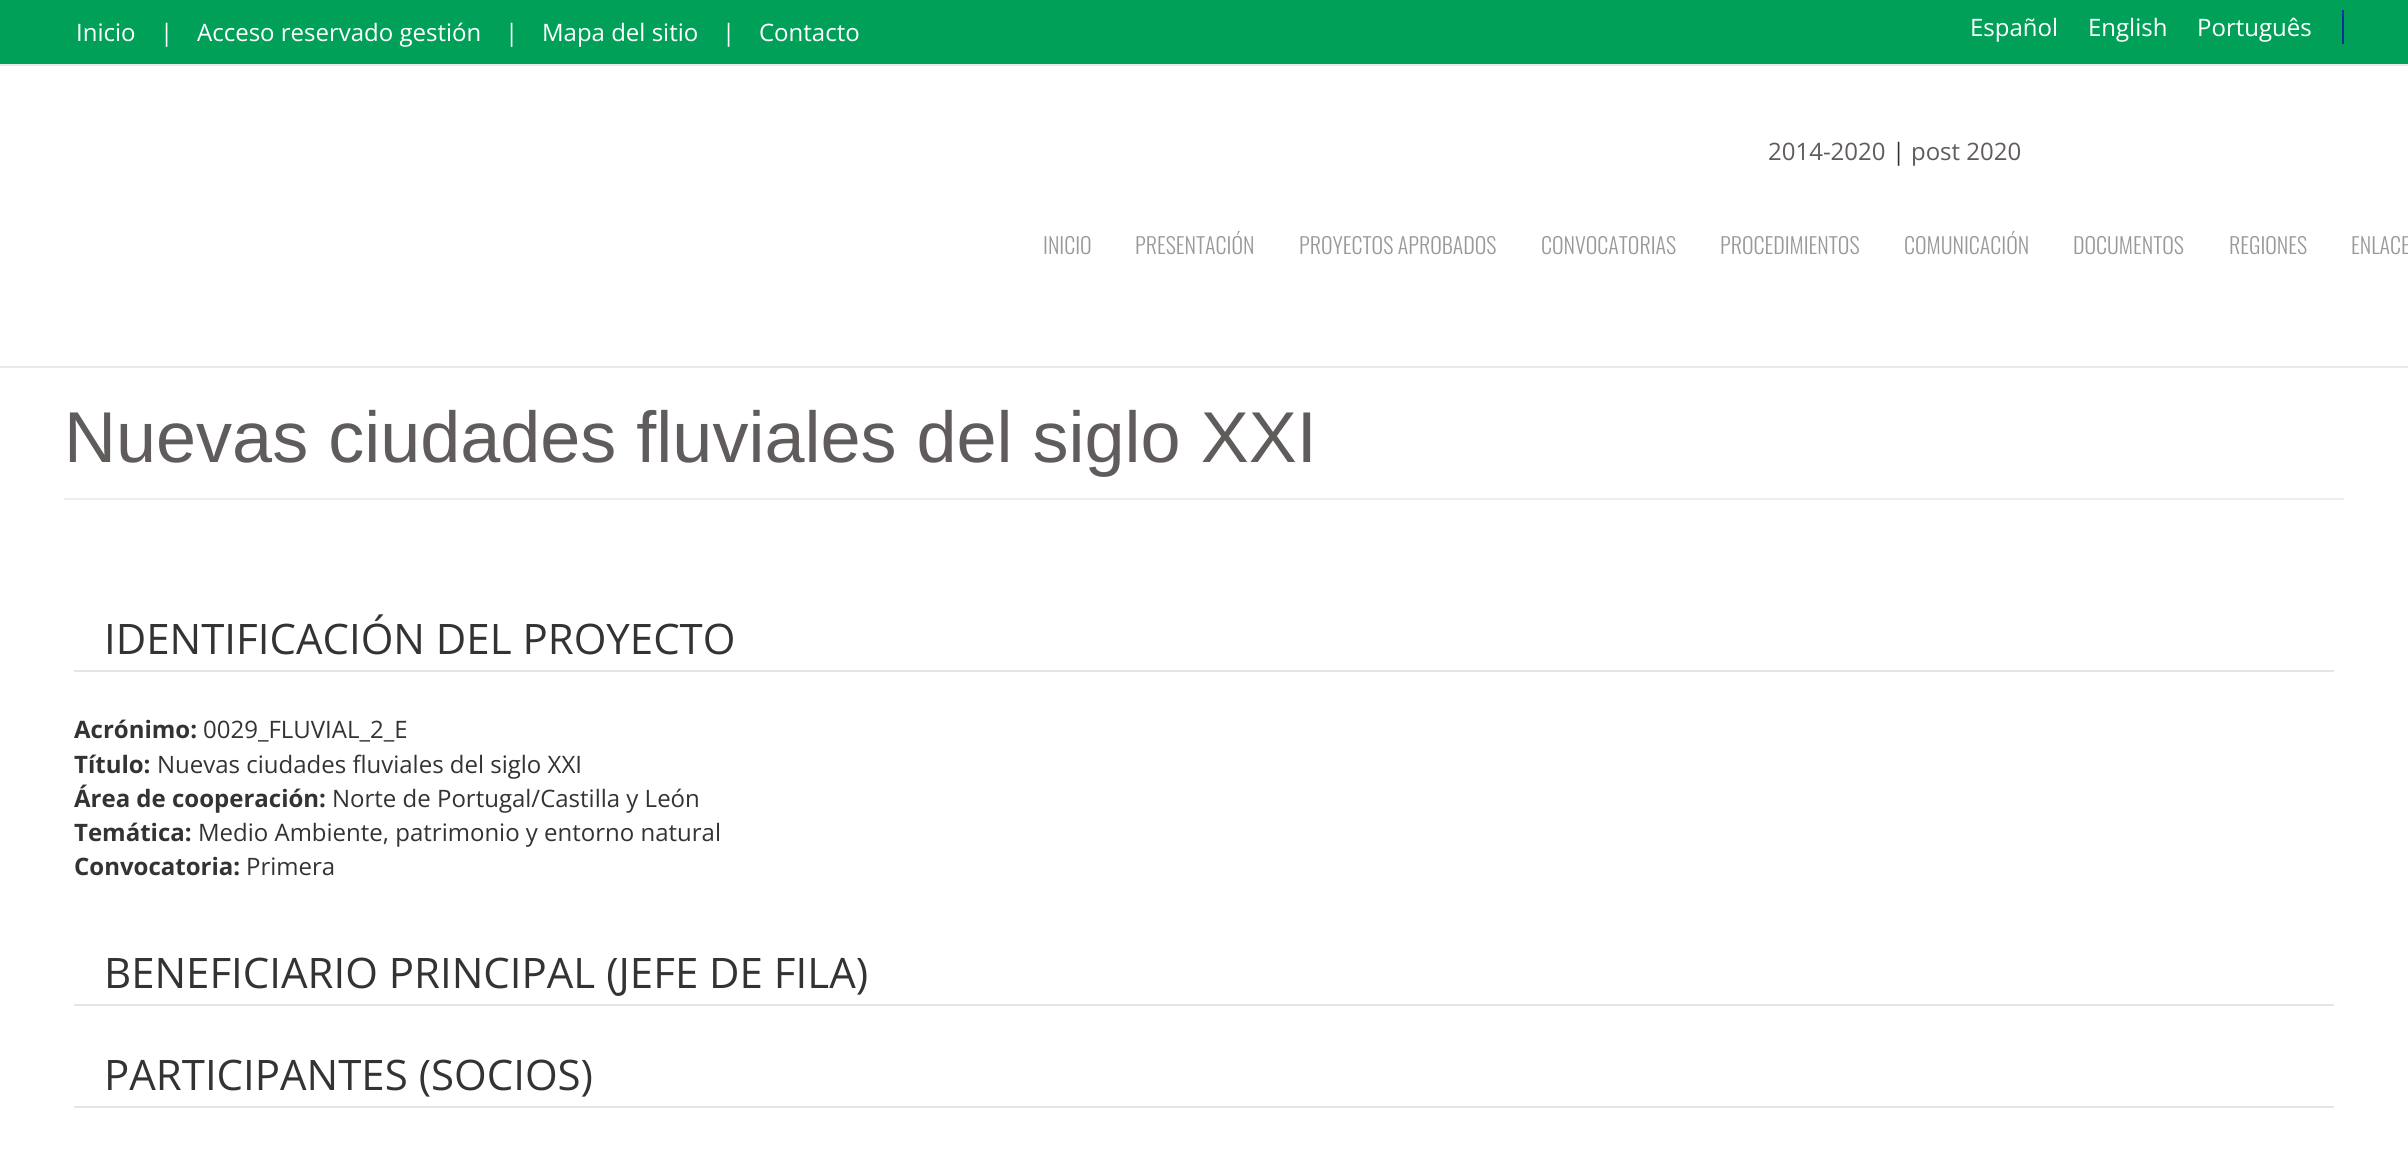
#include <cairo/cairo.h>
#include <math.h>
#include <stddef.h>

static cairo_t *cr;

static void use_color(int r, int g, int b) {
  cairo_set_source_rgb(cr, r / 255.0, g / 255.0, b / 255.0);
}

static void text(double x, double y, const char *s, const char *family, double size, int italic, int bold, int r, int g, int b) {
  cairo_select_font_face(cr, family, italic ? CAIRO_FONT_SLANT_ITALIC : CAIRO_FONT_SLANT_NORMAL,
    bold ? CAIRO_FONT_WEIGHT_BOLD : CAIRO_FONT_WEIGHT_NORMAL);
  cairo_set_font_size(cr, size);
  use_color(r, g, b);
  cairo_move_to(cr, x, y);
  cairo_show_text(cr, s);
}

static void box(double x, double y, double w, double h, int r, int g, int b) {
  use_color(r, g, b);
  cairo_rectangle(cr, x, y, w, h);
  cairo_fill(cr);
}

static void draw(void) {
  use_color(255, 255, 255);
  cairo_paint(cr);
  box(0, 0, 2408, 64, 0, 160, 89);
  box(2342, 10, 2, 34, 0, 51, 153);
  box(0, 64, 2408, 2, 234, 234, 234);
  box(0, 366, 2408, 2, 234, 234, 234);
  box(64, 498, 2280, 2, 238, 238, 238);
  box(74, 670, 2260, 2, 229, 229, 229);
  box(74, 1004, 2260, 2, 229, 229, 229);
  box(74, 1106, 2260, 2, 229, 229, 229);
  text(76, 41, "Inicio", "Open Sans", 24, 0, 0, 255, 255, 255);
  text(160, 41, "|", "Open Sans", 24, 0, 0, 255, 255, 255);
  text(197, 41, "Acceso reservado gestión", "Open Sans", 24, 0, 0, 255, 255, 255);
  text(505, 41, "|", "Open Sans", 24, 0, 0, 255, 255, 255);
  text(542, 41, "Mapa del sitio", "Open Sans", 24, 0, 0, 255, 255, 255);
  text(722, 41, "|", "Open Sans", 24, 0, 0, 255, 255, 255);
  text(759, 41, "Contacto", "Open Sans", 24, 0, 0, 255, 255, 255);
  text(1970, 36, "Español", "Open Sans", 24, 0, 0, 255, 255, 255);
  text(2088, 36, "English", "Open Sans", 24, 0, 0, 255, 255, 255);
  text(2197, 36, "Português", "Open Sans", 24, 0, 0, 255, 255, 255);
  text(1768, 160, "2014-2020", "Open Sans", 24, 0, 0, 96, 92, 91);
  text(1892, 160, "|", "Open Sans", 24, 0, 0, 51, 51, 51);
  text(1911, 160, "post 2020", "Open Sans", 24, 0, 0, 96, 92, 91);
  text(1043, 254, "INICIO", "Oswald Light", 22, 0, 0, 153, 153, 153);
  text(1135, 254, "PRESENTACIÓN", "Oswald Light", 22, 0, 0, 153, 153, 153);
  text(1299, 254, "PROYECTOS APROBADOS", "Oswald Light", 22, 0, 0, 153, 153, 153);
  text(1541, 254, "CONVOCATORIAS", "Oswald Light", 22, 0, 0, 153, 153, 153);
  text(1720, 254, "PROCEDIMIENTOS", "Oswald Light", 22, 0, 0, 153, 153, 153);
  text(1904, 254, "COMUNICACIÓN", "Oswald Light", 22, 0, 0, 153, 153, 153);
  text(2073, 254, "DOCUMENTOS", "Oswald Light", 22, 0, 0, 153, 153, 153);
  text(2229, 254, "REGIONES", "Oswald Light", 22, 0, 0, 153, 153, 153);
  text(2351, 254, "ENLACE", "Oswald Light", 22, 0, 0, 153, 153, 153);
  text(64, 462, "Nuevas ciudades fluviales del siglo XXI", "Liberation Sans", 72, 0, 0, 96, 92, 91);
  text(104, 654, "IDENTIFICACIÓN DEL PROYECTO", "Open Sans", 42, 0, 0, 51, 51, 51);
  text(74, 738, "Acrónimo:", "Open Sans", 24, 0, 1, 51, 51, 51);
  text(203, 738, "0029_FLUVIAL_2_E", "Open Sans", 24, 0, 0, 51, 51, 51);
  text(74, 773, "Título:", "Open Sans", 24, 0, 1, 51, 51, 51);
  text(157, 773, "Nuevas ciudades fluviales del siglo XXI", "Open Sans", 24, 0, 0, 51, 51, 51);
  text(74, 807, "Área de cooperación:", "Open Sans", 24, 0, 1, 51, 51, 51);
  text(332, 807, "Norte de Portugal/Castilla y León", "Open Sans", 24, 0, 0, 51, 51, 51);
  text(74, 841, "Temática:", "Open Sans", 24, 0, 1, 51, 51, 51);
  text(198, 841, "Medio Ambiente, patrimonio y entorno natural", "Open Sans", 24, 0, 0, 51, 51, 51);
  text(74, 875, "Convocatoria:", "Open Sans", 24, 0, 1, 51, 51, 51);
  text(246, 875, "Primera", "Open Sans", 24, 0, 0, 51, 51, 51);
  text(104, 988, "BENEFICIARIO PRINCIPAL (JEFE DE FILA)", "Open Sans", 42, 0, 0, 51, 51, 51);
  text(104, 1090, "PARTICIPANTES (SOCIOS)", "Open Sans", 42, 0, 0, 51, 51, 51);
}

int main(void) {
  cairo_surface_t *surface = cairo_image_surface_create(CAIRO_FORMAT_RGB24, 2408, 1175);
  cr = cairo_create(surface);
  cairo_font_options_t *options = cairo_font_options_create();
  cairo_font_options_set_hint_metrics(options, CAIRO_HINT_METRICS_OFF);
  cairo_font_options_set_hint_style(options, CAIRO_HINT_STYLE_NONE);
  cairo_set_font_options(cr, options);
  cairo_set_miter_limit(cr, 4);
  draw();
  cairo_surface_write_to_png(surface, "out.png");
  cairo_font_options_destroy(options);
  cairo_destroy(cr);
  cairo_surface_destroy(surface);
  return 0;
}
